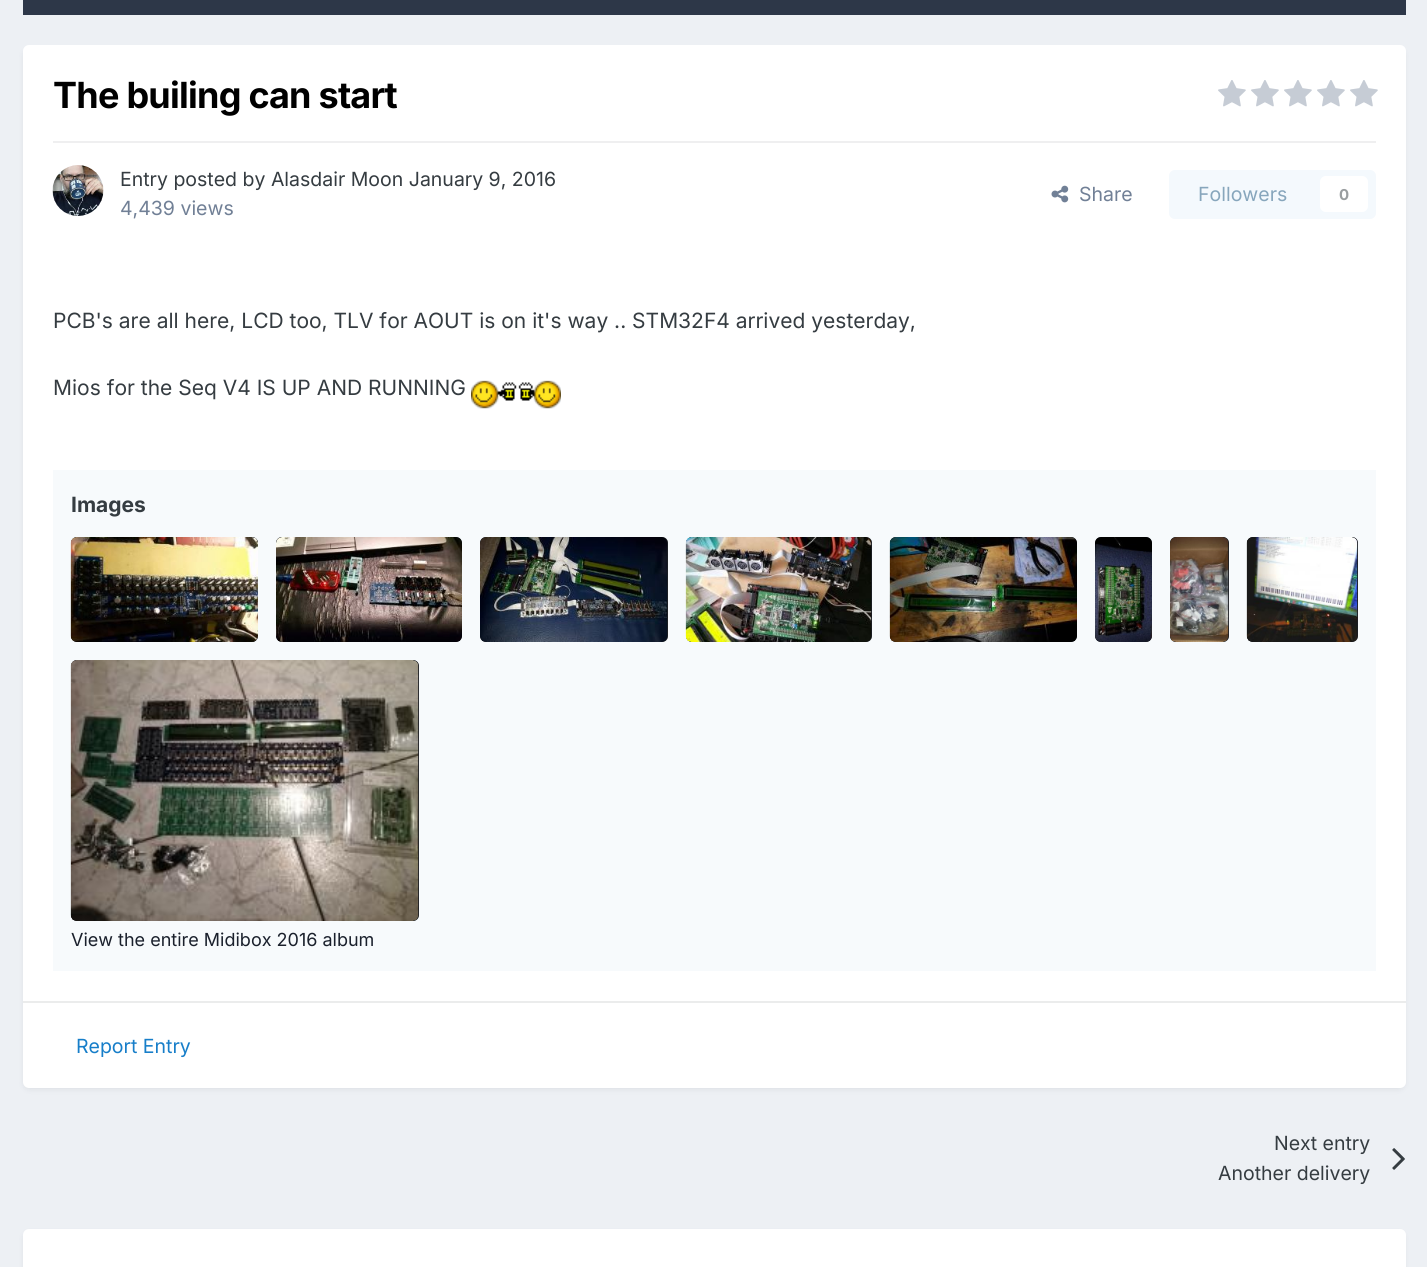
#include <cairo/cairo.h>
#include <math.h>
#include <stddef.h>

static cairo_t *cr;

static void use_color(int r, int g, int b) {
  cairo_set_source_rgb(cr, r / 255.0, g / 255.0, b / 255.0);
}

static void text(double x, double y, const char *s, const char *family, double size, int italic, int bold, int r, int g, int b) {
  cairo_select_font_face(cr, family, italic ? CAIRO_FONT_SLANT_ITALIC : CAIRO_FONT_SLANT_NORMAL,
    bold ? CAIRO_FONT_WEIGHT_BOLD : CAIRO_FONT_WEIGHT_NORMAL);
  cairo_set_font_size(cr, size);
  use_color(r, g, b);
  cairo_move_to(cr, x, y);
  cairo_show_text(cr, s);
}

static void spaced_text(double x, double y, const char *s, double letter, double word) {
  cairo_move_to(cr, x, y);
  while (*s) {
    char ch[5] = {0};
    int n = 0;
    do ch[n++] = *s++; while ((*s & 0xC0) == 0x80);
    cairo_show_text(cr, ch);
    cairo_rel_move_to(cr, letter + word * (*ch == ' '), 0);
  }
}

static void box(double x, double y, double w, double h, int r, int g, int b) {
  use_color(r, g, b);
  cairo_rectangle(cr, x, y, w, h);
  cairo_fill(cr);
}

static void round_rect(double x, double y, double w, double h, double r) {
  cairo_new_sub_path(cr);
  cairo_arc(cr, x + w - r, y + h - r, r, 0, M_PI / 2);
  cairo_arc(cr, x + r, y + h - r, r, M_PI / 2, M_PI);
  cairo_arc(cr, x + r, y + r, r, M_PI, 1.5 * M_PI);
  cairo_arc(cr, x + w - r, y + r, r, 1.5 * M_PI, 2 * M_PI);
  cairo_close_path(cr);
}

static void shadow(double x, double y, double w, double h, double r, double blur, double alpha) {
  cairo_push_group_with_content(cr, CAIRO_CONTENT_ALPHA);
  cairo_set_operator(cr, CAIRO_OPERATOR_SOURCE);
  for (int i = 15; i >= -15 && fmin(w, h) + blur * i / 3 > 0; i -= 2) {
    double e = blur * i / 6;
    cairo_set_source_rgba(cr, 0, 0, 0, alpha * erfc((i - 1) / 8.5) / 2);
    round_rect(x - e, y - e, w + 2 * e, h + 2 * e, fmax(0, fmin(r + e + blur * .6, fmin(w, h) / 2 + e)));
    cairo_fill(cr);
  }
  cairo_pattern_t *soft = cairo_pop_group(cr);
  cairo_mask(cr, soft);
  cairo_pattern_destroy(soft);
}

static void picture(const char *path, double x, double y, double w, double h) {
  cairo_surface_t *image = cairo_image_surface_create_from_png(path);
  cairo_save(cr);
  cairo_set_source_surface(cr, image, x, y);
  cairo_rectangle(cr, x, y, w, h);
  cairo_fill(cr);
  cairo_restore(cr);
  cairo_surface_destroy(image);
}

static void draw(void) {
  use_color(237, 240, 244);
  cairo_paint(cr);
  box(23, 0, 1383, 15, 45, 55, 72);
  use_color(45, 55, 72);
  shadow(24, 50, 1380, 1039, 5, 3, 0.1);
  use_color(255, 255, 255);
  round_rect(23, 45, 1383, 1043, 6);
  cairo_fill(cr);
  picture("img_01.png", 1218, 80, 28, 27);
  picture("img_01.png", 1251, 80, 28, 27);
  picture("img_01.png", 1284, 80, 28, 27);
  picture("img_01.png", 1317, 80, 28, 27);
  picture("img_01.png", 1350, 80, 28, 27);
  box(53, 141, 1323, 2, 239, 239, 240);
  picture("img_02.png", 52, 165, 52, 51);
  picture("img_03.png", 1051, 185, 18, 18);
  use_color(244, 249, 253);
  round_rect(1169, 170, 207, 49, 6);
  cairo_fill(cr);
  use_color(255, 255, 255);
  round_rect(1320, 176, 48, 36, 6);
  cairo_fill(cr);
  picture("img_04.png", 471, 380, 90, 29);
  box(53, 470, 1323, 501, 247, 250, 252);
  use_color(20, 20, 20);
  round_rect(71, 537, 187, 105, 6);
  cairo_fill(cr);
  cairo_set_source_rgba(cr, 0.176, 0.216, 0.282, 0.3);
  round_rect(71, 537, 187, 105, 6);
  cairo_fill(cr);
  picture("img_05.png", 70, 537, 188, 105);
  use_color(20, 20, 20);
  round_rect(276, 537, 186, 105, 6);
  cairo_fill(cr);
  cairo_set_source_rgba(cr, 0.176, 0.216, 0.282, 0.3);
  round_rect(276, 537, 186, 105, 6);
  cairo_fill(cr);
  picture("img_06.png", 276, 537, 186, 105);
  use_color(20, 20, 20);
  round_rect(480, 537, 188, 105, 6);
  cairo_fill(cr);
  cairo_set_source_rgba(cr, 0.176, 0.216, 0.282, 0.3);
  round_rect(480, 537, 188, 105, 6);
  cairo_fill(cr);
  picture("img_07.png", 480, 537, 187, 105);
  use_color(20, 20, 20);
  round_rect(686, 537, 186, 105, 6);
  cairo_fill(cr);
  cairo_set_source_rgba(cr, 0.176, 0.216, 0.282, 0.3);
  round_rect(686, 537, 186, 105, 6);
  cairo_fill(cr);
  picture("img_08.png", 685, 537, 187, 105);
  use_color(20, 20, 20);
  round_rect(890, 537, 187, 105, 6);
  cairo_fill(cr);
  cairo_set_source_rgba(cr, 0.176, 0.216, 0.282, 0.3);
  round_rect(890, 537, 187, 105, 6);
  cairo_fill(cr);
  picture("img_09.png", 889, 537, 188, 105);
  use_color(20, 20, 20);
  round_rect(1095, 537, 57, 105, 6);
  cairo_fill(cr);
  cairo_set_source_rgba(cr, 0.176, 0.216, 0.282, 0.3);
  round_rect(1095, 537, 57, 105, 6);
  cairo_fill(cr);
  picture("img_10.png", 1095, 537, 57, 105);
  use_color(20, 20, 20);
  round_rect(1170, 537, 59, 105, 6);
  cairo_fill(cr);
  cairo_set_source_rgba(cr, 0.176, 0.216, 0.282, 0.3);
  round_rect(1170, 537, 59, 105, 6);
  cairo_fill(cr);
  picture("img_11.png", 1170, 537, 59, 105);
  use_color(20, 20, 20);
  round_rect(1247, 537, 111, 105, 6);
  cairo_fill(cr);
  cairo_set_source_rgba(cr, 0.176, 0.216, 0.282, 0.3);
  round_rect(1247, 537, 111, 105, 6);
  cairo_fill(cr);
  picture("img_12.png", 1246, 537, 112, 105);
  use_color(20, 20, 20);
  round_rect(71, 660, 348, 261, 6);
  cairo_fill(cr);
  cairo_set_source_rgba(cr, 0.176, 0.216, 0.282, 0.3);
  round_rect(71, 660, 348, 261, 6);
  cairo_fill(cr);
  picture("img_13.png", 70, 660, 349, 261);
  box(23, 1001, 1383, 2, 235, 236, 236);
  picture("img_14.png", 1392, 1148, 13, 22);
  use_color(45, 55, 72);
  shadow(24, 1233, 1380, 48, 5, 3, 0.1);
  use_color(255, 255, 255);
  round_rect(23, 1229, 1383, 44, 6);
  cairo_fill(cr);
  cairo_select_font_face(cr, "Inter", CAIRO_FONT_SLANT_NORMAL, CAIRO_FONT_WEIGHT_BOLD);
  cairo_set_font_size(cr, 36);
  use_color(0, 0, 0);
  spaced_text(53, 108, "The builing can start", -0.75, 0);
  text(120, 186, "Entry posted by Alasdair Moon January 9, 2016", "Inter", 19.5, 0, 0, 53, 60, 65);
  text(120, 215, "4,439 views", "Inter", 19.5, 0, 0, 113, 128, 150);
  text(1079, 201, "Share", "Inter", 19.5, 0, 0, 113, 128, 150);
  text(1198, 201, "Followers", "Inter", 19.5, 0, 0, 135, 166, 188);
  text(1339, 200, "0", "Inter", 15, 0, 1, 154, 158, 160);
  text(53, 328, "PCB's are all here, LCD too, TLV for AOUT is on it's way .. STM32F4 arrived yesterday,", "Inter", 21, 0, 0, 53, 60, 65);
  text(53, 395, "Mios for the Seq V4 IS UP AND RUNNING", "Inter", 21, 0, 0, 53, 60, 65);
  text(71, 512, "Images", "Inter", 21, 0, 1, 53, 60, 65);
  text(71, 946, "View the entire Midibox 2016 album", "Inter", 18, 0, 0, 26, 32, 44);
  text(76, 1053, "Report Entry", "Inter", 19.5, 0, 0, 23, 126, 201);
  text(1274, 1150, "Next entry", "Inter", 19.5, 0, 0, 53, 60, 65);
  text(1218, 1180, "Another delivery", "Inter", 19.5, 0, 0, 53, 60, 65);
}

int main(void) {
  cairo_surface_t *surface = cairo_image_surface_create(CAIRO_FORMAT_RGB24, 1427, 1267);
  cr = cairo_create(surface);
  cairo_font_options_t *options = cairo_font_options_create();
  cairo_font_options_set_hint_metrics(options, CAIRO_HINT_METRICS_OFF);
  cairo_font_options_set_hint_style(options, CAIRO_HINT_STYLE_NONE);
  cairo_set_font_options(cr, options);
  cairo_set_miter_limit(cr, 4);
  draw();
  cairo_surface_write_to_png(surface, "out.png");
  cairo_font_options_destroy(options);
  cairo_destroy(cr);
  cairo_surface_destroy(surface);
  return 0;
}
